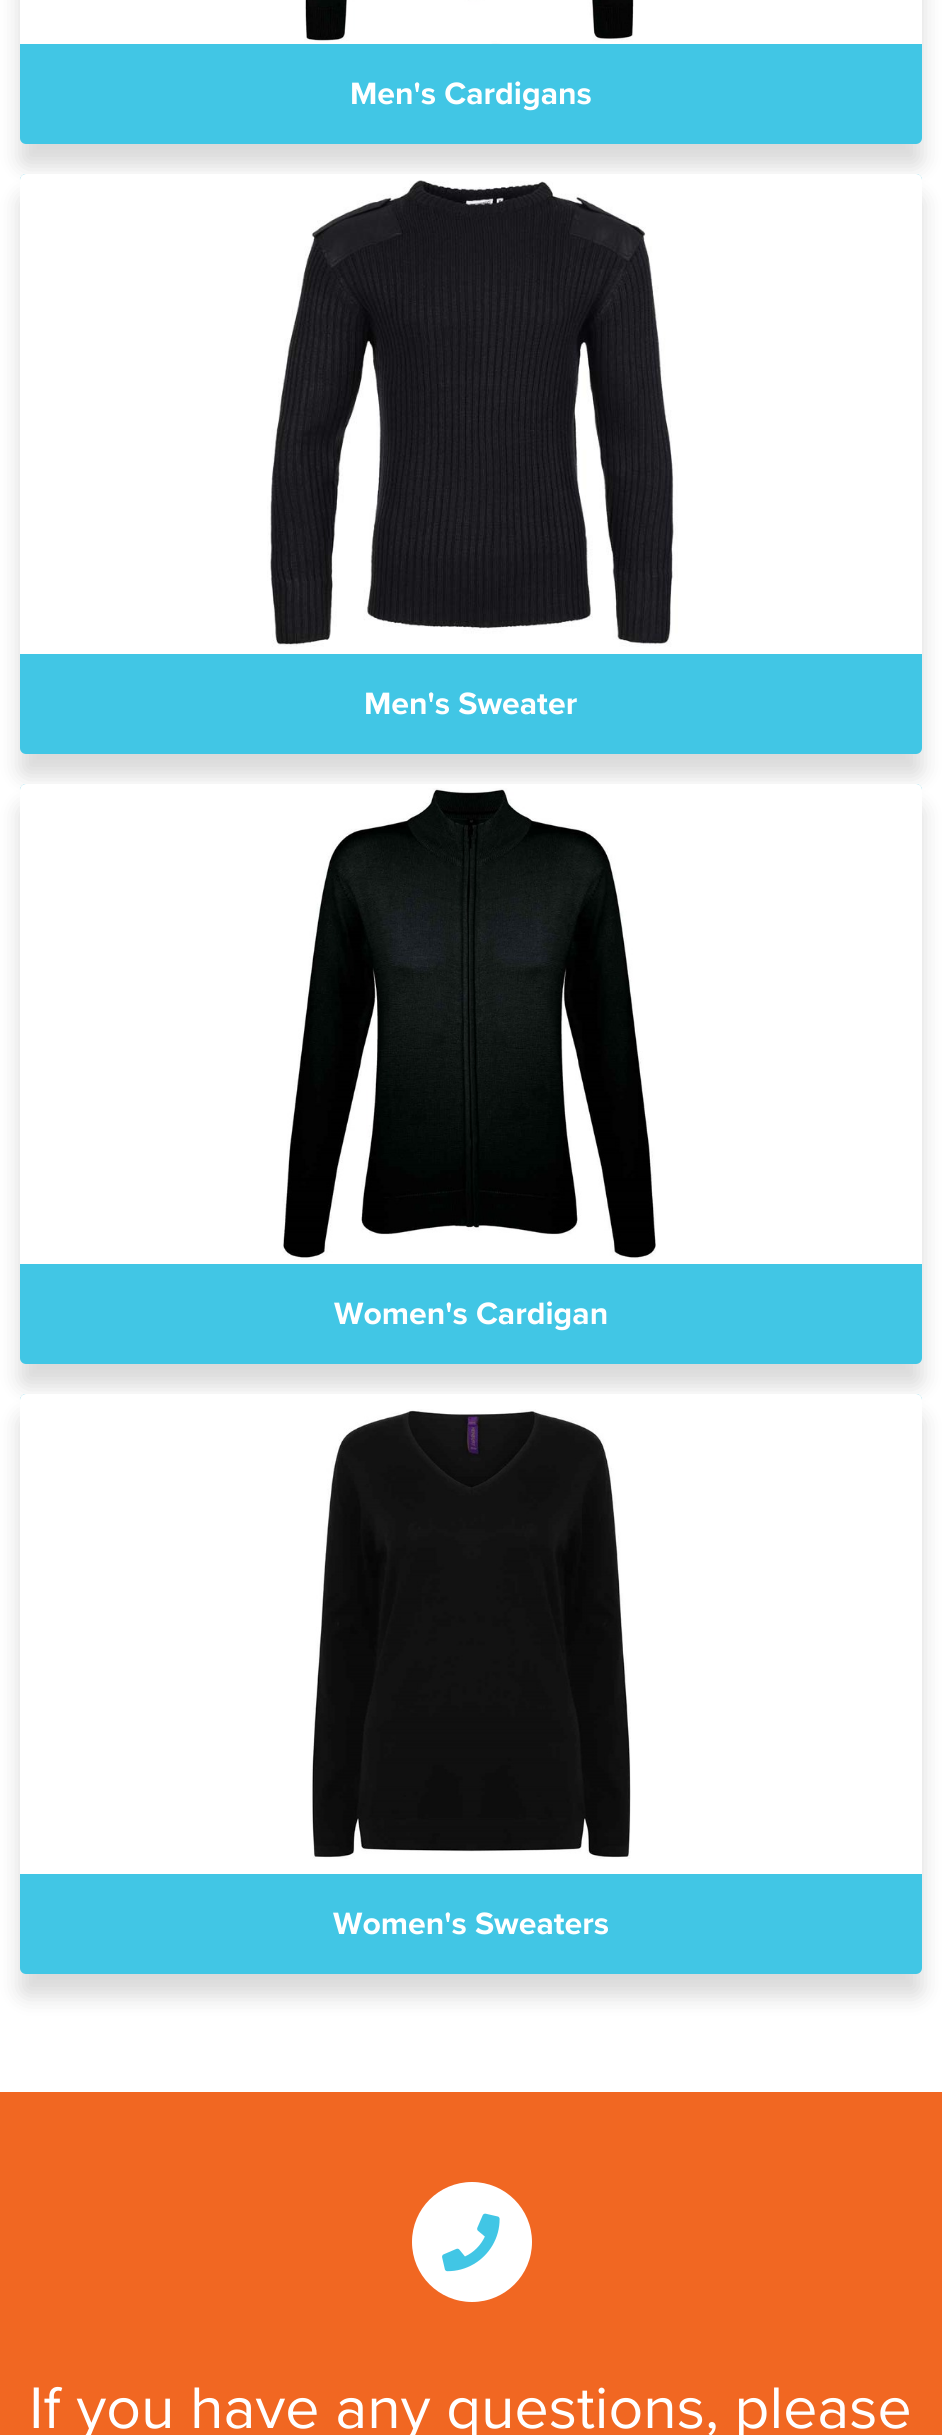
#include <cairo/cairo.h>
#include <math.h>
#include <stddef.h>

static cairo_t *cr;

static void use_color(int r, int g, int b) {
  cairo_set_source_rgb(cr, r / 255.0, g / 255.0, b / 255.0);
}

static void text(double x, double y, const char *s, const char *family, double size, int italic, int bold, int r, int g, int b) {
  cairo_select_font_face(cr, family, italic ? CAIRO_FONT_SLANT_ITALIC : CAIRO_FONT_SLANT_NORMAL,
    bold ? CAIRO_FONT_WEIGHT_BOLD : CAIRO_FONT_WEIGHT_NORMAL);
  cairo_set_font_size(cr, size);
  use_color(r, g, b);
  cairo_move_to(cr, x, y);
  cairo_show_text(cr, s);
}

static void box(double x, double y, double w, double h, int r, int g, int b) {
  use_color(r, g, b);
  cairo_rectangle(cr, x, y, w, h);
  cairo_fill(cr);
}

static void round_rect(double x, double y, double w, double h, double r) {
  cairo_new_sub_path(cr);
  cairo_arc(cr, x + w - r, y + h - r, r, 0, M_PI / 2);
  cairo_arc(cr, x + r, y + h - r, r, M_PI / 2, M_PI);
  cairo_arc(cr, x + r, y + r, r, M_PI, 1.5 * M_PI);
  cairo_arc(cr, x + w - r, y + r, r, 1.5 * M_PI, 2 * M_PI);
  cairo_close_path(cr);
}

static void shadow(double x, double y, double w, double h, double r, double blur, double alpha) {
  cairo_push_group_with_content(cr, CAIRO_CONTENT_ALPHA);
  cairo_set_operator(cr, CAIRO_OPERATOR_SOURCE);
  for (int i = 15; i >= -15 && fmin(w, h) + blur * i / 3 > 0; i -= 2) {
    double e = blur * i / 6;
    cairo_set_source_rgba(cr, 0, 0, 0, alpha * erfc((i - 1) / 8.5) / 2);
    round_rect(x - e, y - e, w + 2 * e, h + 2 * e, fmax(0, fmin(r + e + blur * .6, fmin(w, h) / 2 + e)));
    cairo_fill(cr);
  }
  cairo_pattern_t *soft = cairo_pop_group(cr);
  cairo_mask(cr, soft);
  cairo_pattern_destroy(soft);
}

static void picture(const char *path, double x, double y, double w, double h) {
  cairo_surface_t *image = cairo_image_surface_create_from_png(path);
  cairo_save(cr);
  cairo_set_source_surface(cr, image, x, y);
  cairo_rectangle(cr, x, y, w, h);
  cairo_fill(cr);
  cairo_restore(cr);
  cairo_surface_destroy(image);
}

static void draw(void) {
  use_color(255, 255, 255);
  cairo_paint(cr);
  use_color(0, 0, 0);
  shadow(20, -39, 902, 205, 6, 11, 0.15);
  use_color(65, 198, 229);
  round_rect(20, -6, 902, 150, 6);
  cairo_fill(cr);
  box(20, 0, 902, 44, 255, 255, 255);
  picture("img_01.png", 304, 0, 330, 44);
  use_color(0, 0, 0);
  shadow(20, 196, 902, 580, 6, 11, 0.15);
  use_color(65, 198, 229);
  round_rect(20, 174, 902, 580, 6);
  cairo_fill(cr);
  use_color(255, 255, 255);
  cairo_new_path(cr);
  cairo_move_to(cr, 26, 174);
  cairo_line_to(cr, 916, 174);
  cairo_curve_to(cr, 919.5, 174, 922, 176.5, 922, 180);
  cairo_line_to(cr, 922, 654);
  cairo_line_to(cr, 20, 654);
  cairo_line_to(cr, 20, 180);
  cairo_curve_to(cr, 20, 176.5, 22.5, 174, 26, 174);
  cairo_close_path(cr);
  cairo_fill(cr);
  picture("img_02.png", 267, 180, 411, 467);
  use_color(0, 0, 0);
  shadow(20, 806, 902, 580, 6, 11, 0.15);
  use_color(65, 198, 229);
  round_rect(20, 784, 902, 580, 6);
  cairo_fill(cr);
  use_color(255, 255, 255);
  cairo_new_path(cr);
  cairo_move_to(cr, 26, 784);
  cairo_line_to(cr, 916, 784);
  cairo_curve_to(cr, 919.5, 784, 922, 786.5, 922, 790);
  cairo_line_to(cr, 922, 1264);
  cairo_line_to(cr, 20, 1264);
  cairo_line_to(cr, 20, 790);
  cairo_curve_to(cr, 20, 786.5, 22.5, 784, 26, 784);
  cairo_close_path(cr);
  cairo_fill(cr);
  picture("img_03.png", 282, 788, 374, 472);
  use_color(0, 0, 0);
  shadow(20, 1416, 902, 580, 6, 11, 0.15);
  use_color(65, 198, 229);
  round_rect(20, 1394, 902, 580, 6);
  cairo_fill(cr);
  use_color(255, 255, 255);
  cairo_new_path(cr);
  cairo_move_to(cr, 26, 1394);
  cairo_line_to(cr, 916, 1394);
  cairo_curve_to(cr, 919.5, 1394, 922, 1396.5, 922, 1400);
  cairo_line_to(cr, 922, 1874);
  cairo_line_to(cr, 20, 1874);
  cairo_line_to(cr, 20, 1400);
  cairo_curve_to(cr, 20, 1396.5, 22.5, 1394, 26, 1394);
  cairo_close_path(cr);
  cairo_fill(cr);
  picture("img_04.png", 310, 1409, 321, 450);
  box(0, 2092, 942, 343, 241, 103, 34);
  use_color(255, 255, 255);
  cairo_arc(cr, 472, 2242, 60, 0, 2 * M_PI);
  cairo_fill(cr);
  picture("img_05.png", 442, 2213, 58, 59);
  text(350, 104, "Men's Cardigans", "Proxima Nova", 32, 0, 1, 255, 255, 255);
  text(364, 714, "Men's Sweater", "Proxima Nova", 32, 0, 1, 255, 255, 255);
  text(334, 1324, "Women's Cardigan", "Proxima Nova", 32, 0, 1, 255, 255, 255);
  text(333, 1934, "Women's Sweaters", "Proxima Nova", 32, 0, 1, 255, 255, 255);
  text(29, 2428, "If you have any questions, please", "Proxima Nova", 60.75, 0, 0, 255, 255, 255);
}

int main(void) {
  cairo_surface_t *surface = cairo_image_surface_create(CAIRO_FORMAT_RGB24, 942, 2435);
  cr = cairo_create(surface);
  cairo_font_options_t *options = cairo_font_options_create();
  cairo_font_options_set_hint_metrics(options, CAIRO_HINT_METRICS_OFF);
  cairo_font_options_set_hint_style(options, CAIRO_HINT_STYLE_NONE);
  cairo_set_font_options(cr, options);
  cairo_set_miter_limit(cr, 4);
  draw();
  cairo_surface_write_to_png(surface, "out.png");
  cairo_font_options_destroy(options);
  cairo_destroy(cr);
  cairo_surface_destroy(surface);
  return 0;
}
